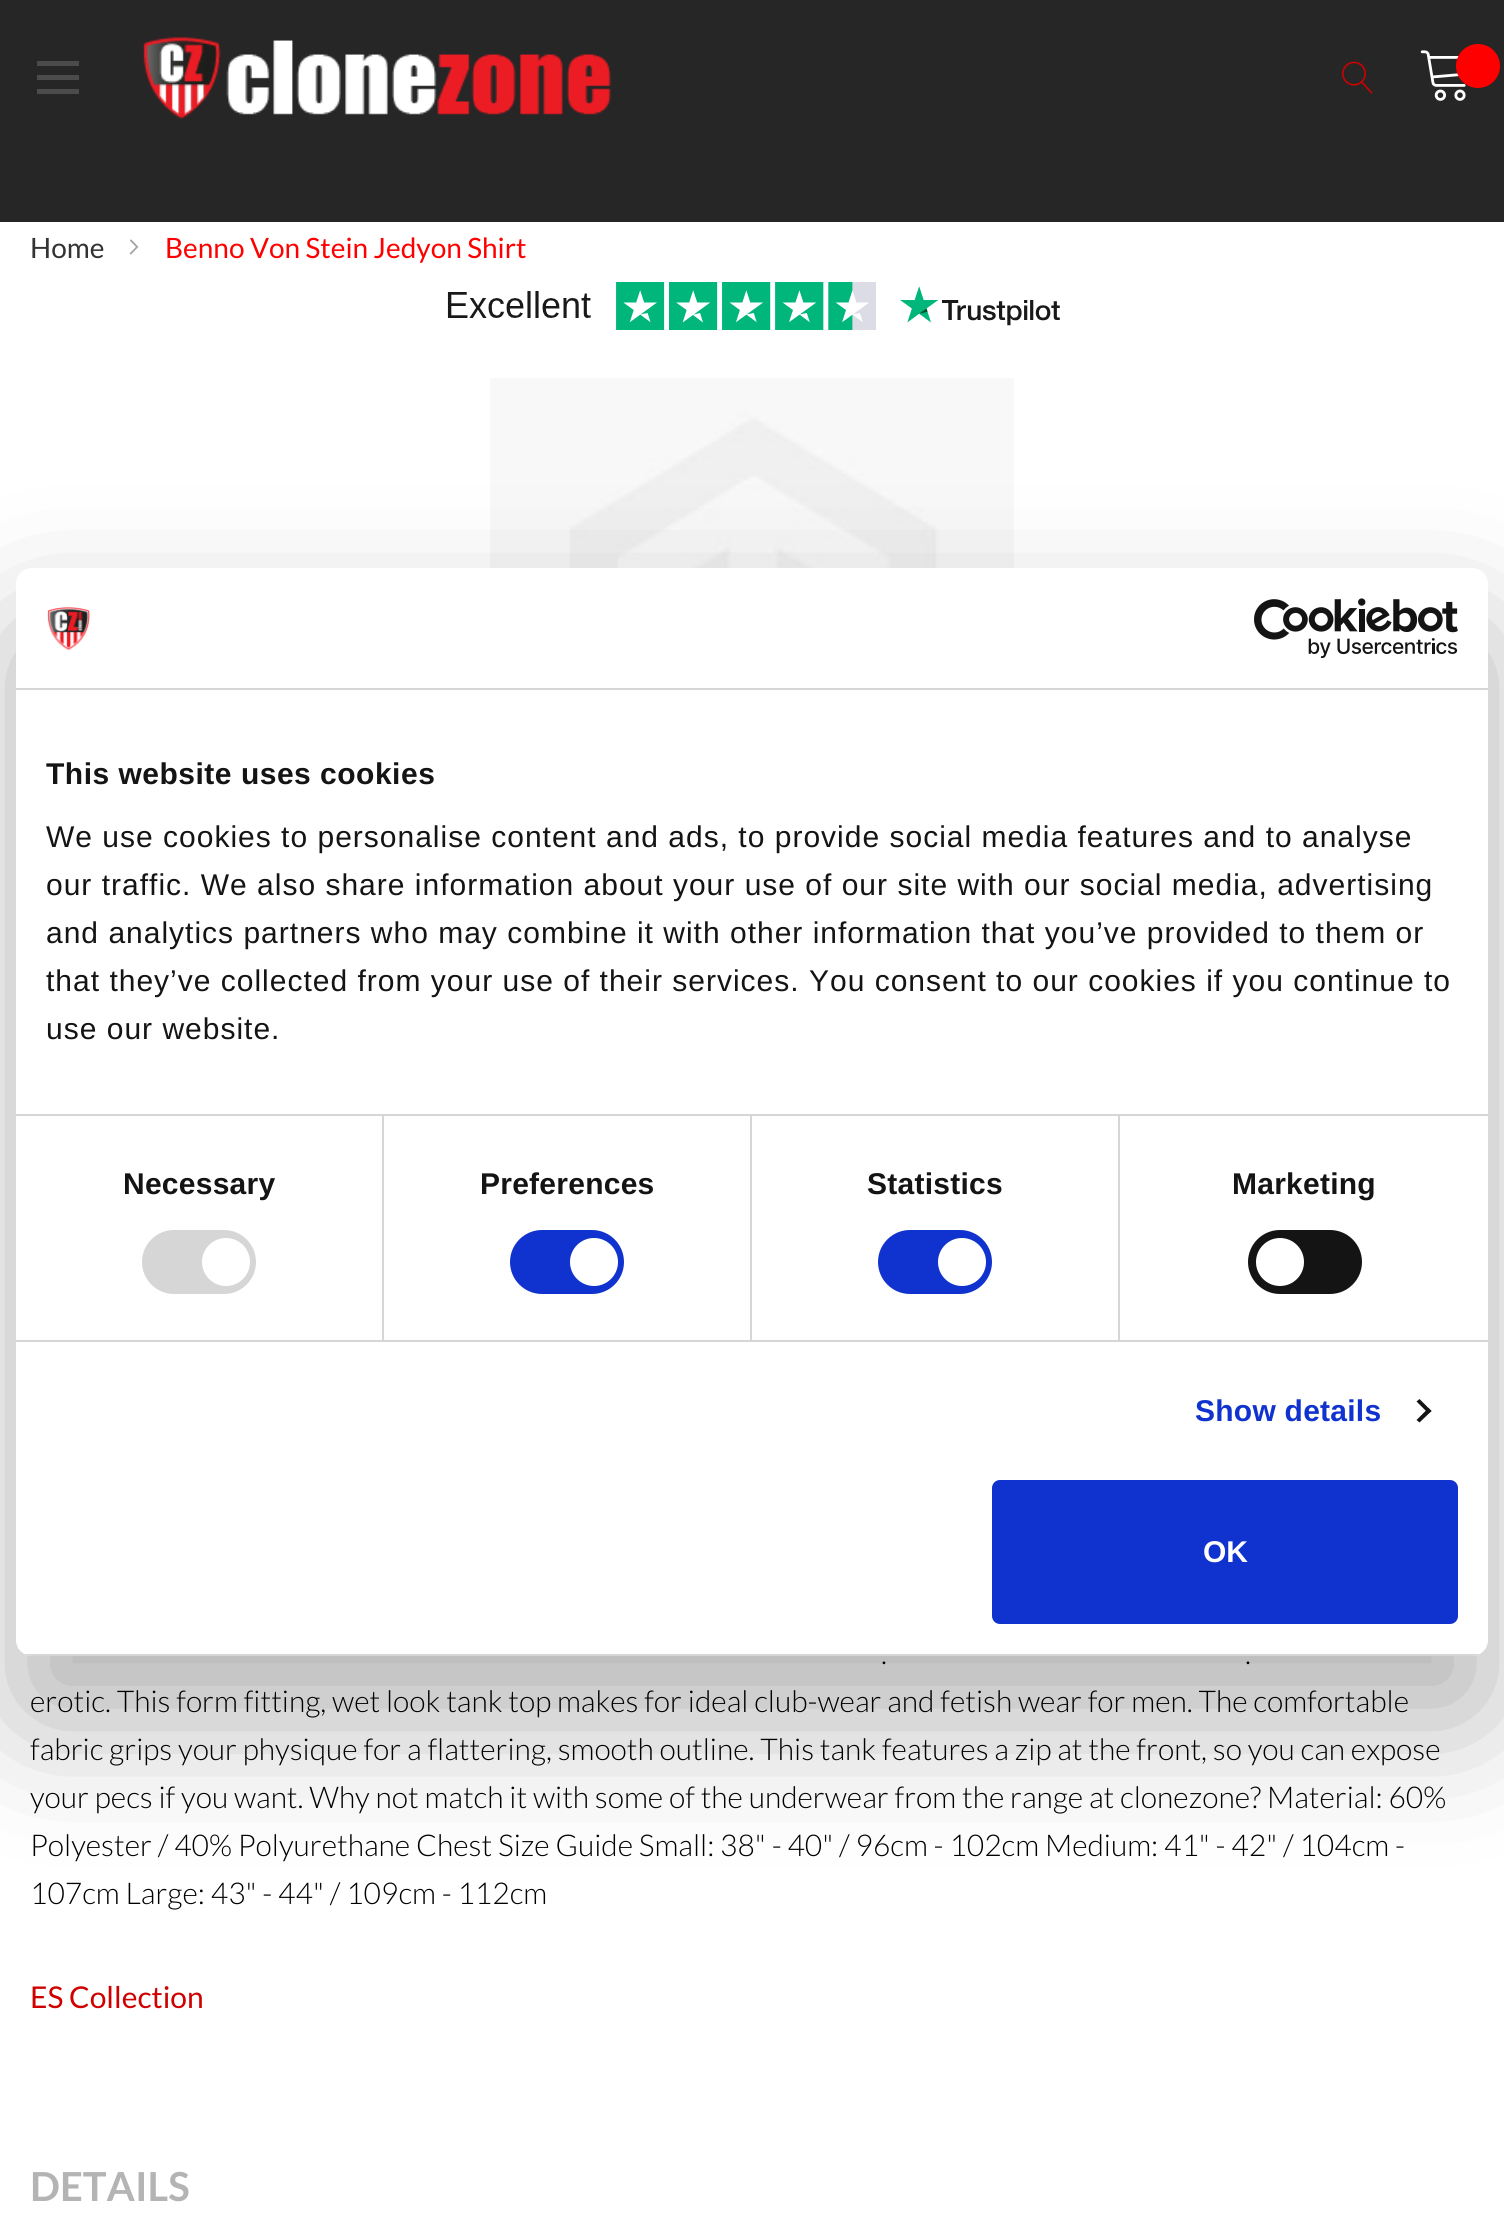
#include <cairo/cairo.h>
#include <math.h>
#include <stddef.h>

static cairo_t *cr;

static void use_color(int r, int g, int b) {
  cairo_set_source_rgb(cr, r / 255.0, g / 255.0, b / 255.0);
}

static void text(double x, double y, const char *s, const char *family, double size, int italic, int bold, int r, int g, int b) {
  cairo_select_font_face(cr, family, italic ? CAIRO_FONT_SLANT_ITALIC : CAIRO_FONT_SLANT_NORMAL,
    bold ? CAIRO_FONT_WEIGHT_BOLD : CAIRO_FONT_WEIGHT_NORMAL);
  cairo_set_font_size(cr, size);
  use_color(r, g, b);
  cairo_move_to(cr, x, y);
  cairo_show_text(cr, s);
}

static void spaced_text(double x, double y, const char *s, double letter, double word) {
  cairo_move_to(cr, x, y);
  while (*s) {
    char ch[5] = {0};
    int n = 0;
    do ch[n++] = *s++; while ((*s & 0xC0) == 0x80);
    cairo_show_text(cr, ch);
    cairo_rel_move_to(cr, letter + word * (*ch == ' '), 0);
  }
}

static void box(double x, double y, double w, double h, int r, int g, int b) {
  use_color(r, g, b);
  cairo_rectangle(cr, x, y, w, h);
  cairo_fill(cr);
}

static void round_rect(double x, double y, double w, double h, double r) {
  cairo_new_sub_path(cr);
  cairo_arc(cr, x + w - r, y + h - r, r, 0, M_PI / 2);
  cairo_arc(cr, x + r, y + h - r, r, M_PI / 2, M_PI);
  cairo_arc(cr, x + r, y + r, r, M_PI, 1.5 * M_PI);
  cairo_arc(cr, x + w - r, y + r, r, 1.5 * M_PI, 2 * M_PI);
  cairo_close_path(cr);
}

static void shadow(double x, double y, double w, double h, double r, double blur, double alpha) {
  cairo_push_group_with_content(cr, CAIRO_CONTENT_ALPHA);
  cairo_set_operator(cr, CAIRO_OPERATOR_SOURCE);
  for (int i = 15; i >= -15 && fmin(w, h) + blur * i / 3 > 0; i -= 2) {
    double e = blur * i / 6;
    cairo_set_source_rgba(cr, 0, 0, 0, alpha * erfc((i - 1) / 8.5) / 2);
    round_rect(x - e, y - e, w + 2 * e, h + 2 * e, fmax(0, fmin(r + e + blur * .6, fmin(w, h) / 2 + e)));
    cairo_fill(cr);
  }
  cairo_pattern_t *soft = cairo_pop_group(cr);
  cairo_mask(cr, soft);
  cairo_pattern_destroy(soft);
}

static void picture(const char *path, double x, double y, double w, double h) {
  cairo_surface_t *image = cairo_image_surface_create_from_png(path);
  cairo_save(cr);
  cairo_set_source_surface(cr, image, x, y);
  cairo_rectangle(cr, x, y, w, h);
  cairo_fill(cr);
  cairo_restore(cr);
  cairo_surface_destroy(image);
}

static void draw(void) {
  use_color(255, 255, 255);
  cairo_paint(cr);
  box(0, 0, 1504, 222, 38, 38, 39);
  use_color(75, 75, 75);
  cairo_new_path(cr);
  cairo_move_to(cr, 37, 61);
  cairo_line_to(cr, 37, 66);
  cairo_line_to(cr, 79, 66);
  cairo_line_to(cr, 79, 61);
  cairo_close_path(cr);
  cairo_move_to(cr, 37, 80);
  cairo_line_to(cr, 79, 80);
  cairo_line_to(cr, 79, 75);
  cairo_line_to(cr, 37, 75);
  cairo_close_path(cr);
  cairo_move_to(cr, 37, 94);
  cairo_line_to(cr, 79, 94);
  cairo_line_to(cr, 79, 89);
  cairo_line_to(cr, 37, 89);
  cairo_close_path(cr);
  cairo_fill(cr);
  picture("img_01.png", 143, 37, 468, 82);
  picture("img_02.png", 1342, 61, 31, 33);
  picture("img_03.png", 1420, 50, 46, 51);
  use_color(255, 0, 0);
  cairo_arc(cr, 1478, 66, 22, 0, 2 * M_PI);
  cairo_fill(cr);
  picture("img_04.png", 129, 239, 10, 16);
  picture("img_05.png", 447, 282, 613, 48);
  picture("img_06.png", 490, 378, 524, 190);
  use_color(0, 0, 0);
  shadow(16, 632, 1472, 1088, 16, 68, 0.3);
  use_color(255, 255, 255);
  round_rect(16, 568, 1472, 1088, 16);
  cairo_fill(cr);
  box(16, 688, 1472, 2, 214, 214, 214);
  picture("img_07.png", 47, 607, 43, 44);
  picture("img_08.png", 1254, 598, 204, 60);
  box(16, 1114, 1472, 2, 214, 214, 214);
  box(16, 1340, 1472, 2, 214, 214, 214);
  box(382, 1116, 2, 224, 214, 214, 214);
  round_rect(142, 1230, 114, 64, 32);
  cairo_fill(cr);
  use_color(255, 255, 255);
  cairo_arc(cr, 226, 1262, 24, 0, 2 * M_PI);
  cairo_fill(cr);
  box(750, 1116, 2, 224, 214, 214, 214);
  use_color(16, 50, 207);
  round_rect(510, 1230, 114, 64, 32);
  cairo_fill(cr);
  use_color(255, 255, 255);
  cairo_arc(cr, 594, 1262, 24, 0, 2 * M_PI);
  cairo_fill(cr);
  box(1118, 1116, 2, 224, 214, 214, 214);
  use_color(16, 50, 207);
  round_rect(878, 1230, 114, 64, 32);
  cairo_fill(cr);
  use_color(255, 255, 255);
  cairo_arc(cr, 962, 1262, 24, 0, 2 * M_PI);
  cairo_fill(cr);
  use_color(20, 20, 20);
  round_rect(1248, 1230, 114, 64, 32);
  cairo_fill(cr);
  use_color(255, 255, 255);
  cairo_arc(cr, 1280, 1262, 24, 0, 2 * M_PI);
  cairo_fill(cr);
  use_color(20, 20, 20);
  cairo_new_path(cr);
  cairo_move_to(cr, 1419.5, 1399);
  cairo_line_to(cr, 1431.5, 1411);
  cairo_line_to(cr, 1428.5, 1413.5);
  cairo_line_to(cr, 1416.5, 1401.5);
  cairo_close_path(cr);
  cairo_fill(cr);
  cairo_new_path(cr);
  cairo_move_to(cr, 1428.5, 1408);
  cairo_line_to(cr, 1431.5, 1411);
  cairo_line_to(cr, 1419.5, 1422.5);
  cairo_line_to(cr, 1416.5, 1420);
  cairo_close_path(cr);
  cairo_fill(cr);
  cairo_save(cr);
  round_rect(16, 568, 1472, 1088, 16);
  cairo_clip(cr);
  box(16, 1654, 1472, 2, 214, 214, 214);
  cairo_restore(cr);
  use_color(16, 50, 207);
  round_rect(994, 1482, 462, 140, 6);
  cairo_fill_preserve(cr);
  cairo_set_line_width(cr, 4);
  cairo_stroke(cr);
  text(30, 258, "Home", "Lato", 28, 0, 0, 51, 51, 51);
  text(165, 258, "Benno Von Stein Jedyon Shirt", "Lato", 28, 0, 0, 255, 0, 0);
  text(881, 1664, ".", "Lato Light", 30, 0, 0, 0, 0, 0);
  text(1245, 1664, ".", "Lato Light", 30, 0, 0, 0, 0, 0);
  text(30, 1712, "erotic. This form fitting, wet look tank top makes for ideal club-wear and fetish wear for men. The comfortable", "Lato Light", 30, 0, 0, 0, 0, 0);
  text(30, 1760, "fabric grips your physique for a flattering, smooth outline. This tank features a zip at the front, so you can expose", "Lato Light", 30, 0, 0, 0, 0, 0);
  text(30, 1808, "your pecs if you want. Why not match it with some of the underwear from the range at clonezone? Material: 60%", "Lato Light", 30, 0, 0, 0, 0, 0);
  text(30, 1856, "Polyester / 40% Polyurethane Chest Size Guide Small: 38\" - 40\" / 96cm - 102cm Medium: 41\" - 42\" / 104cm -", "Lato Light", 30, 0, 0, 0, 0, 0);
  text(30, 1904, "107cm Large: 43\" - 44\" / 109cm - 112cm", "Lato Light", 30, 0, 0, 0, 0, 0);
  text(30, 2008, "ES Collection", "Lato", 30, 0, 0, 206, 0, 0);
  text(30, 2201, "DETAILS", "Lato", 40, 0, 1, 180, 180, 180);
  cairo_select_font_face(cr, "Liberation Sans", CAIRO_FONT_SLANT_NORMAL, CAIRO_FONT_WEIGHT_BOLD);
  cairo_set_font_size(cr, 30);
  use_color(20, 20, 20);
  spaced_text(46, 784, "This website uses cookies", 0.5, 0);
  cairo_select_font_face(cr, "Liberation Sans", CAIRO_FONT_SLANT_NORMAL, CAIRO_FONT_WEIGHT_NORMAL);
  spaced_text(46, 847, "We use cookies to personalise content and ads, to provide social media features and to analyse", 1, 0);
  spaced_text(46, 895, "our traffic. We also share information about your use of our site with our social media, advertising", 1, 0);
  spaced_text(46, 943, "and analytics partners who may combine it with other information that you’ve provided to them or", 1, 0);
  spaced_text(46, 991, "that they’ve collected from your use of their services. You consent to our cookies if you continue to", 1, 0);
  spaced_text(46, 1039, "use our website.", 1, 0);
  cairo_select_font_face(cr, "Liberation Sans", CAIRO_FONT_SLANT_NORMAL, CAIRO_FONT_WEIGHT_BOLD);
  spaced_text(123, 1194, "Necessary", 0.25, 0);
  spaced_text(480, 1194, "Preferences", 0.25, 0);
  spaced_text(867, 1194, "Statistics", 0.25, 0);
  spaced_text(1232, 1194, "Marketing", 0.25, 0);
  use_color(16, 50, 207);
  spaced_text(1195, 1421, "Show details", 0.25, 0);
  text(1203, 1562, "OK", "Liberation Sans", 30, 0, 1, 255, 255, 255);
}

int main(void) {
  cairo_surface_t *surface = cairo_image_surface_create(CAIRO_FORMAT_RGB24, 1504, 2223);
  cr = cairo_create(surface);
  cairo_font_options_t *options = cairo_font_options_create();
  cairo_font_options_set_hint_metrics(options, CAIRO_HINT_METRICS_OFF);
  cairo_font_options_set_hint_style(options, CAIRO_HINT_STYLE_NONE);
  cairo_set_font_options(cr, options);
  cairo_set_miter_limit(cr, 4);
  draw();
  cairo_surface_write_to_png(surface, "out.png");
  cairo_font_options_destroy(options);
  cairo_destroy(cr);
  cairo_surface_destroy(surface);
  return 0;
}
